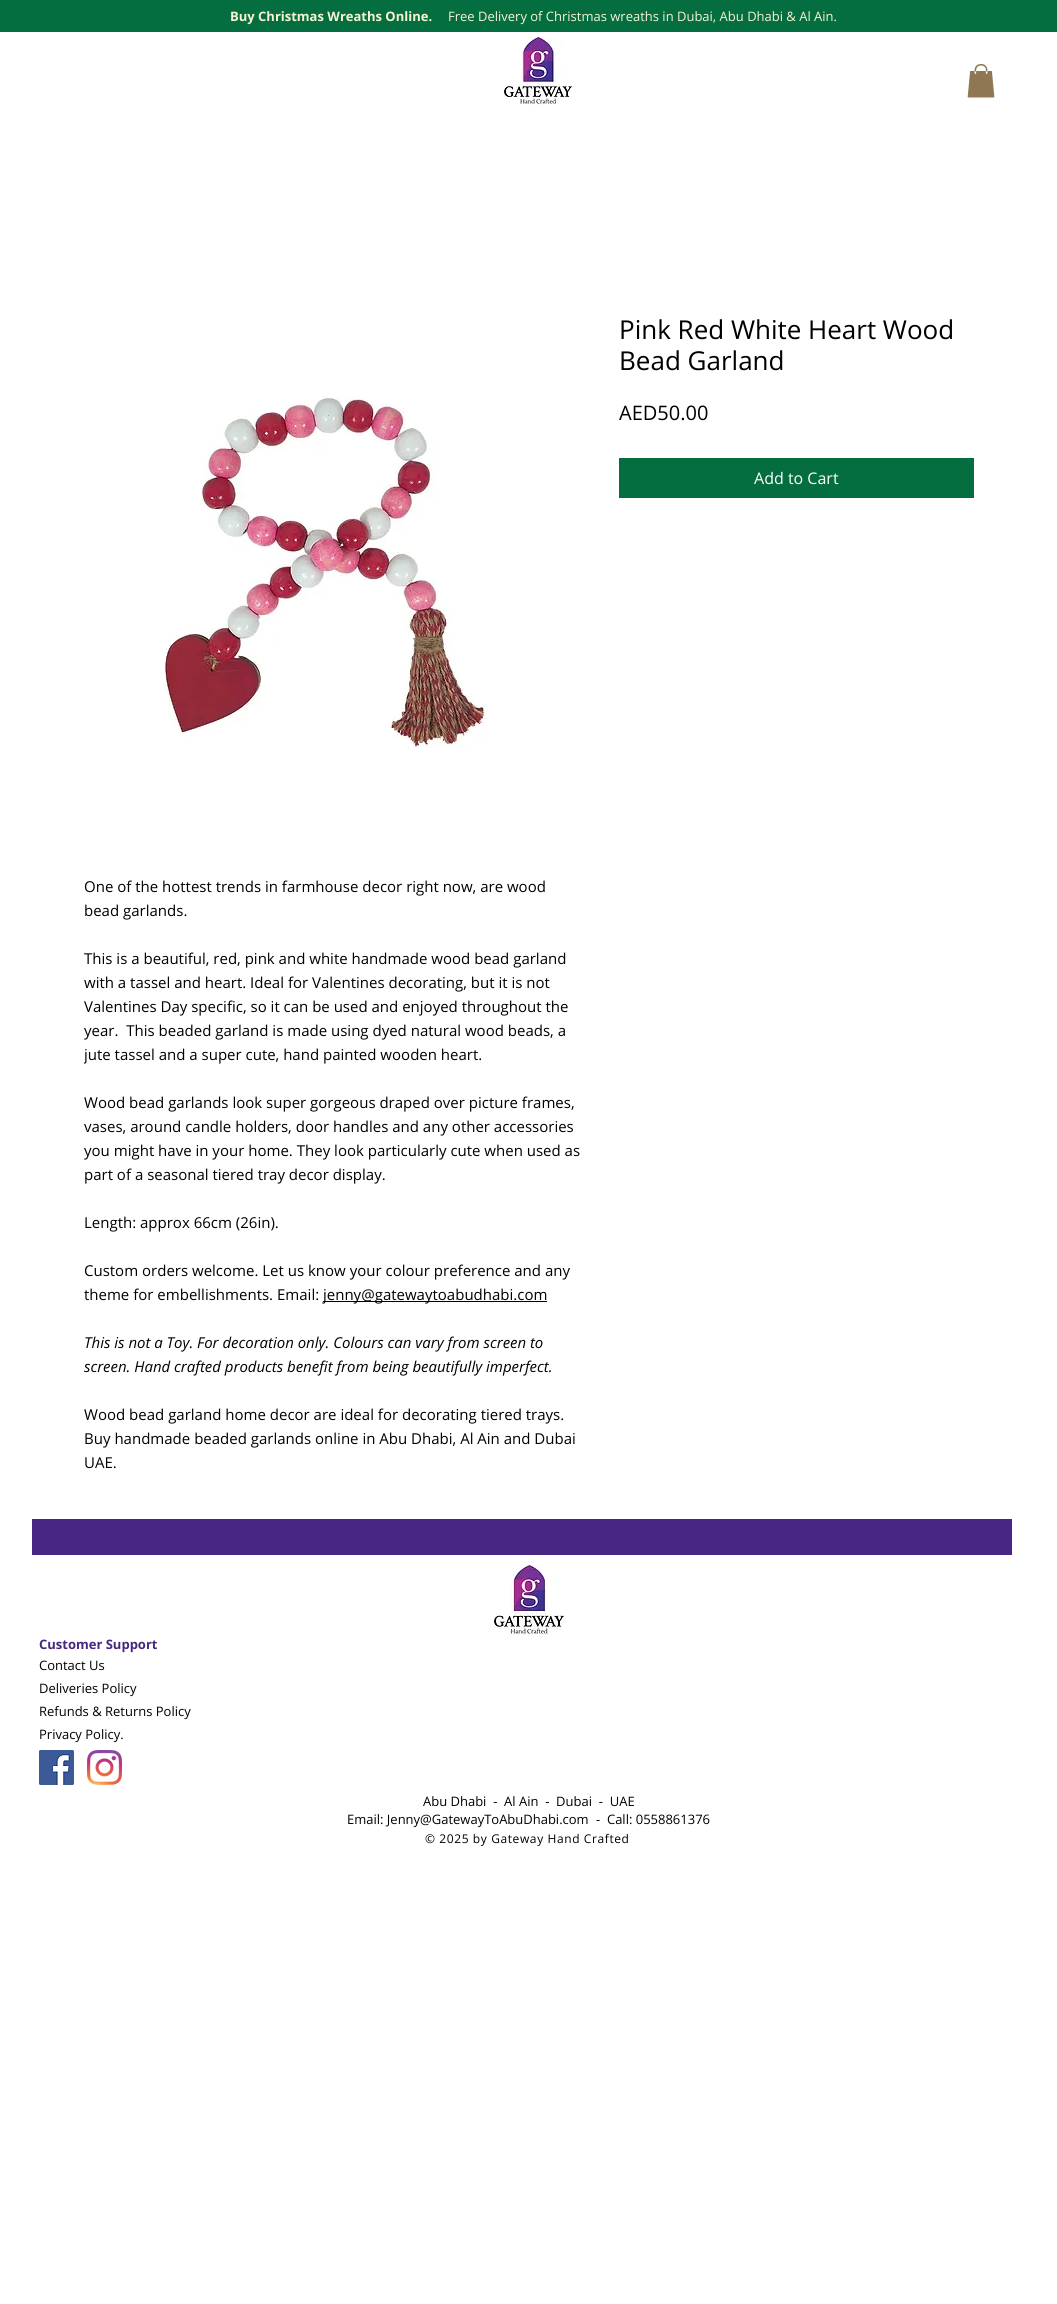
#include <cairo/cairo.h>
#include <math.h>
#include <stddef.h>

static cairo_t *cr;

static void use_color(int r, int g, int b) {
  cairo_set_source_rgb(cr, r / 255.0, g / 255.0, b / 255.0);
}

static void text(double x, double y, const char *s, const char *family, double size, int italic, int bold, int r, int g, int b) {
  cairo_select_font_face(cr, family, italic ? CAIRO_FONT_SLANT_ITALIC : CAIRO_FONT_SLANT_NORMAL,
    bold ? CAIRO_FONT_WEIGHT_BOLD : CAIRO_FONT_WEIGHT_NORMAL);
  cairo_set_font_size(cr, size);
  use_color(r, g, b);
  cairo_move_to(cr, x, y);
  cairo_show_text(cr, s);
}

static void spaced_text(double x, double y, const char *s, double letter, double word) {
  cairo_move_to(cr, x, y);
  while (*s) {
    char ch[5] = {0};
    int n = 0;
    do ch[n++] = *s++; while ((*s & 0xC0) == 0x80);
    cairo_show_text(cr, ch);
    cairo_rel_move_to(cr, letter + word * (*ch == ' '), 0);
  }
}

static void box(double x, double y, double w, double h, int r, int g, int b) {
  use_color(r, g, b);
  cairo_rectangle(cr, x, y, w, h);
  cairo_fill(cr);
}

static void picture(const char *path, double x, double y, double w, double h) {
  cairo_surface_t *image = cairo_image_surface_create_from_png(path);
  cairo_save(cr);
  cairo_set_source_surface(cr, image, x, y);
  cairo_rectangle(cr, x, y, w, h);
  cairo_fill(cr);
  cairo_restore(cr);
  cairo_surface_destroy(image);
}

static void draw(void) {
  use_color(255, 255, 255);
  cairo_paint(cr);
  box(0, 0, 1057, 32, 4, 110, 65);
  picture("img_01.png", 504, 37, 68, 68);
  picture("img_02.png", 967, 64, 28, 34);
  box(619, 458, 355, 40, 4, 110, 65);
  picture("img_03.png", 164, 396, 321, 352);
  box(323, 1301, 224, 1, 0, 0, 0);
  box(32, 1519, 980, 36, 72, 38, 131);
  picture("img_04.png", 494, 1565, 70, 70);
  picture("img_05.png", 39, 1750, 35, 35);
  picture("img_06.png", 87, 1750, 35, 35);
  text(230, 21, "Buy Christmas Wreaths Online.", "Open Sans", 13, 0, 1, 249, 243, 210);
  text(448, 21, "Free Delivery of Christmas wreaths in Dubai, Abu Dhabi & Al Ain.", "Open Sans", 13, 0, 0, 249, 243, 210);
  text(619, 339, "Pink Red White Heart Wood", "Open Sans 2", 26, 0, 0, 0, 0, 0);
  text(619, 370, "Bead Garland", "Open Sans 2", 26, 0, 0, 0, 0, 0);
  text(619, 420, "AED50.00", "Open Sans 2", 20, 0, 0, 0, 0, 0);
  text(754, 484, "Add to Cart", "Open Sans 2", 16, 0, 0, 255, 255, 255);
  text(84, 892, "One of the hottest trends in farmhouse decor right now, are wood", "Open Sans 2", 15, 0, 0, 0, 0, 0);
  text(84, 916, "bead garlands.", "Open Sans 2", 15, 0, 0, 0, 0, 0);
  text(84, 964, "This is a beautiful, red, pink and white handmade wood bead garland", "Open Sans 2", 15, 0, 0, 0, 0, 0);
  text(84, 988, "with a tassel and heart. Ideal for Valentines decorating, but it is not", "Open Sans 2", 15, 0, 0, 0, 0, 0);
  text(84, 1012, "Valentines Day specific, so it can be used and enjoyed throughout the", "Open Sans 2", 15, 0, 0, 0, 0, 0);
  cairo_save(cr);
  cairo_rectangle(cr, 84, 874, 500, 600);
  cairo_clip(cr);
  text(84, 1036, "year.  This beaded garland is made using dyed natural wood beads, a", "Open Sans 2", 15, 0, 0, 0, 0, 0);
  text(84, 1060, "jute tassel and a super cute, hand painted wooden heart.", "Open Sans 2", 15, 0, 0, 0, 0, 0);
  cairo_restore(cr);
  text(84, 1108, "Wood bead garlands look super gorgeous draped over picture frames,", "Open Sans 2", 15, 0, 0, 0, 0, 0);
  text(84, 1132, "vases, around candle holders, door handles and any other accessories", "Open Sans 2", 15, 0, 0, 0, 0, 0);
  cairo_save(cr);
  cairo_rectangle(cr, 84, 874, 500, 600);
  cairo_clip(cr);
  text(84, 1156, "you might have in your home. They look particularly cute when used as", "Open Sans 2", 15, 0, 0, 0, 0, 0);
  cairo_restore(cr);
  text(84, 1180, "part of a seasonal tiered tray decor display.", "Open Sans 2", 15, 0, 0, 0, 0, 0);
  text(84, 1228, "Length: approx 66cm (26in).", "Open Sans 2", 15, 0, 0, 0, 0, 0);
  text(84, 1276, "Custom orders welcome. Let us know your colour preference and any", "Open Sans 2", 15, 0, 0, 0, 0, 0);
  text(84, 1300, "theme for embellishments. Email:", "Open Sans 2", 15, 0, 0, 0, 0, 0);
  text(323, 1300, "jenny@gatewaytoabudhabi.com", "Open Sans 2", 15, 0, 0, 0, 0, 0);
  text(84, 1348, "This is not a Toy. For decoration only. Colours can vary from screen to", "Open Sans", 15, 1, 0, 0, 0, 0);
  text(84, 1372, "screen. Hand crafted products benefit from being beautifully imperfect.", "Open Sans", 15, 1, 0, 0, 0, 0);
  text(84, 1420, "Wood bead garland home decor are ideal for decorating tiered trays.", "Open Sans 2", 15, 0, 0, 0, 0, 0);
  text(84, 1444, "Buy handmade beaded garlands online in Abu Dhabi, Al Ain and Dubai", "Open Sans 2", 15, 0, 0, 0, 0, 0);
  text(84, 1468, "UAE.", "Open Sans 2", 15, 0, 0, 0, 0, 0);
  text(39, 1649, "Customer Support", "Open Sans", 13, 0, 1, 72, 38, 131);
  text(39, 1670, "Contact Us", "Open Sans", 13, 0, 0, 0, 0, 0);
  text(39, 1693, "Deliveries Policy", "Open Sans", 13, 0, 0, 0, 0, 0);
  text(39, 1716, "Refunds & Returns Policy", "Open Sans", 13, 0, 0, 0, 0, 0);
  text(39, 1739, "Privacy Policy.", "Open Sans", 13, 0, 0, 0, 0, 0);
  text(423, 1806, "Abu Dhabi  -  Al Ain  -  Dubai  -  UAE", "Open Sans", 13, 0, 0, 0, 0, 0);
  text(347, 1824, "Email: Jenny@GatewayToAbuDhabi.com", "Open Sans", 13, 0, 0, 0, 0, 0);
  text(596, 1824, "-  Call: 0558861376", "Open Sans", 13, 0, 0, 0, 0, 0);
  cairo_set_font_size(cr, 12);
  spaced_text(425, 1843, "© 2025 by Gateway Hand Crafted", 0.6, 0);
}

int main(void) {
  cairo_surface_t *surface = cairo_image_surface_create(CAIRO_FORMAT_RGB24, 1057, 2304);
  cr = cairo_create(surface);
  cairo_font_options_t *options = cairo_font_options_create();
  cairo_font_options_set_hint_metrics(options, CAIRO_HINT_METRICS_OFF);
  cairo_font_options_set_hint_style(options, CAIRO_HINT_STYLE_NONE);
  cairo_set_font_options(cr, options);
  cairo_set_miter_limit(cr, 4);
  draw();
  cairo_surface_write_to_png(surface, "out.png");
  cairo_font_options_destroy(options);
  cairo_destroy(cr);
  cairo_surface_destroy(surface);
  return 0;
}
